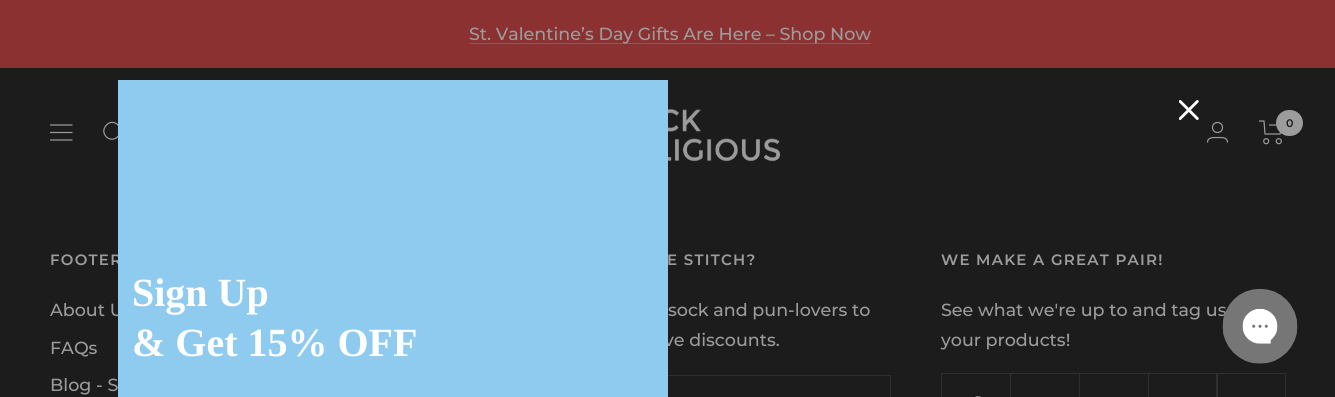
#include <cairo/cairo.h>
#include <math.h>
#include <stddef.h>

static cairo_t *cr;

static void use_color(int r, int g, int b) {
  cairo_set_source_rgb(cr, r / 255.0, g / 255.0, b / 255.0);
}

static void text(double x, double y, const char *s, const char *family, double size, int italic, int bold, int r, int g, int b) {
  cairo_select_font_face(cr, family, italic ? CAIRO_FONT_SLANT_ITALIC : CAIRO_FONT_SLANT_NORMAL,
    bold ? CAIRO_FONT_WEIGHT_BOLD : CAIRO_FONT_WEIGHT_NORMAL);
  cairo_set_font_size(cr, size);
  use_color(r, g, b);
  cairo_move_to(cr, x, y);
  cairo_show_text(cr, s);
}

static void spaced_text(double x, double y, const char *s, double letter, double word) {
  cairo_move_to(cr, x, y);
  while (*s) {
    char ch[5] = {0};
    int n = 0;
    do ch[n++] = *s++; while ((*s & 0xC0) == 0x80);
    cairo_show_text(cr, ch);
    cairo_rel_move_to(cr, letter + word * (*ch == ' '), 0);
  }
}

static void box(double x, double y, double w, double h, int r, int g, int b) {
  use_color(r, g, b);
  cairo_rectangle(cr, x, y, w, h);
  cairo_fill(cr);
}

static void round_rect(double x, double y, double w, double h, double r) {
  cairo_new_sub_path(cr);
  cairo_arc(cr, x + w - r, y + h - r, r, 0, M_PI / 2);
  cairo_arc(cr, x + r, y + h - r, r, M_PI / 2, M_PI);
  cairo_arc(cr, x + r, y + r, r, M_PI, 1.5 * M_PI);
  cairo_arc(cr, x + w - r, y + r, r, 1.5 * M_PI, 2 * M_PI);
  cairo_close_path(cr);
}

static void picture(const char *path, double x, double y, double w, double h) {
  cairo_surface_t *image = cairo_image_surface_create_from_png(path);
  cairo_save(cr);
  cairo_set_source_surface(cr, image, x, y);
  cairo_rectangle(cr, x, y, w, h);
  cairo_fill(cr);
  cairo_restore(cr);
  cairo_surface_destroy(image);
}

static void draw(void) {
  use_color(28, 28, 28);
  cairo_paint(cr);
  box(0, 0, 1335, 68, 139, 49, 49);
  box(469, 43, 402, 1, 145, 87, 87);
  cairo_new_path(cr);
  cairo_move_to(cr, 50, 125);
  cairo_line_to(cr, 72.5, 125);
  cairo_move_to(cr, 50, 140);
  cairo_line_to(cr, 72.5, 140);
  cairo_close_path(cr);
  cairo_move_to(cr, 50, 132.5);
  cairo_line_to(cr, 72.5, 132.5);
  cairo_close_path(cr);
  use_color(156, 156, 156);
  cairo_set_line_width(cr, 1.2);
  cairo_stroke(cr);
  cairo_new_path(cr);
  cairo_move_to(cr, 118, 136.5);
  cairo_curve_to(cr, 125.5, 129, 114, 117, 106.5, 125);
  cairo_curve_to(cr, 98.5, 133, 110, 144.5, 118, 136.5);
  cairo_close_path(cr);
  cairo_move_to(cr, 118, 136.5);
  cairo_line_to(cr, 124, 142.5);
  cairo_stroke(cr);
  picture("img_01.png", 668, 109, 112, 53);
  cairo_arc(cr, 1217.5, 127.5, 5, 0, 2 * M_PI);
  cairo_stroke(cr);
  cairo_new_path(cr);
  cairo_move_to(cr, 1207.5, 142.5);
  cairo_curve_to(cr, 1207.5, 137, 1213.5, 137.5, 1217.5, 137.5);
  cairo_curve_to(cr, 1221.5, 137.5, 1227.5, 137, 1227.5, 142.5);
  cairo_stroke(cr);
  cairo_new_path(cr);
  cairo_move_to(cr, 1259, 121);
  cairo_line_to(cr, 1264, 121);
  cairo_line_to(cr, 1265, 134);
  cairo_line_to(cr, 1280, 134);
  cairo_line_to(cr, 1282.5, 125);
  cairo_line_to(cr, 1269, 125);
  cairo_stroke(cr);
  cairo_arc(cr, 1266.2, 141.2, 2.5, 0, 2 * M_PI);
  cairo_stroke(cr);
  cairo_arc(cr, 1278.8, 141.2, 2.5, 0, 2 * M_PI);
  cairo_stroke(cr);
  round_rect(1276, 110, 27, 26, 13);
  cairo_fill(cr);
  cairo_rectangle(cr, 569.5, 375.5, 321, 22);
  use_color(47, 47, 47);
  cairo_set_line_width(cr, 1);
  cairo_stroke(cr);
  box(1010, 373, 1, 24, 47, 47, 47);
  box(941, 373, 138, 1, 47, 47, 47);
  box(941, 373, 1, 24, 47, 47, 47);
  picture("img_02.png", 975, 396, 6, 1);
  box(1079, 373, 1, 24, 47, 47, 47);
  box(1148, 373, 1, 24, 47, 47, 47);
  box(1079, 373, 137, 1, 47, 47, 47);
  box(1216, 373, 2, 24, 47, 47, 47);
  box(1285, 373, 1, 24, 47, 47, 47);
  box(1216, 373, 69, 1, 47, 47, 47);
  picture("img_03.png", 1179, 100, 20, 20);
  text(469, 40, "St. Valentine’s Day Gifts Are Here – Shop Now", "Montserrat Medium", 17.5, 0, 0, 156, 156, 156);
  text(1286, 127, "0", "Montserrat SemiBold", 11, 0, 0, 28, 28, 28);
  cairo_set_font_size(cr, 15);
  use_color(156, 156, 156);
  spaced_text(50, 265, "FOOTER", 1.25, 0);
  text(50, 316, "About U", "Montserrat Medium", 17.5, 0, 0, 156, 156, 156);
  text(50, 354, "FAQs", "Montserrat Medium", 17.5, 0, 0, 156, 156, 156);
  text(50, 391, "Blog - S", "Montserrat Medium", 17.5, 0, 0, 156, 156, 156);
  cairo_select_font_face(cr, "Montserrat SemiBold", CAIRO_FONT_SLANT_NORMAL, CAIRO_FONT_WEIGHT_NORMAL);
  cairo_set_font_size(cr, 15);
  spaced_text(667, 265, "E STITCH?", 1.25, 0);
  text(668, 316, "sock and pun-lovers to", "Montserrat Medium", 17.5, 0, 0, 156, 156, 156);
  text(664, 346, "ve discounts.", "Montserrat Medium", 17.5, 0, 0, 156, 156, 156);
  cairo_select_font_face(cr, "Montserrat SemiBold", CAIRO_FONT_SLANT_NORMAL, CAIRO_FONT_WEIGHT_NORMAL);
  cairo_set_font_size(cr, 15);
  spaced_text(941, 265, "WE MAKE A GREAT PAIR!", 1.25, 0);
  text(941, 316, "See what we're up to and tag us", "Montserrat Medium", 17.5, 0, 0, 156, 156, 156);
  text(941, 346, "your products!", "Montserrat Medium", 17.5, 0, 0, 156, 156, 156);
  box(118, 80, 550, 317, 143, 203, 238);
  text(132, 306, "Sign Up", "Liberation Serif", 40, 0, 1, 255, 255, 255);
  text(132, 356, "& Get 15% OFF", "Liberation Serif", 40, 0, 1, 255, 255, 255);
  picture("img_04.png", 1222, 288, 76, 76);
}

int main(void) {
  cairo_surface_t *surface = cairo_image_surface_create(CAIRO_FORMAT_RGB24, 1335, 397);
  cr = cairo_create(surface);
  cairo_font_options_t *options = cairo_font_options_create();
  cairo_font_options_set_hint_metrics(options, CAIRO_HINT_METRICS_OFF);
  cairo_font_options_set_hint_style(options, CAIRO_HINT_STYLE_NONE);
  cairo_set_font_options(cr, options);
  cairo_set_miter_limit(cr, 4);
  draw();
  cairo_surface_write_to_png(surface, "out.png");
  cairo_font_options_destroy(options);
  cairo_destroy(cr);
  cairo_surface_destroy(surface);
  return 0;
}
